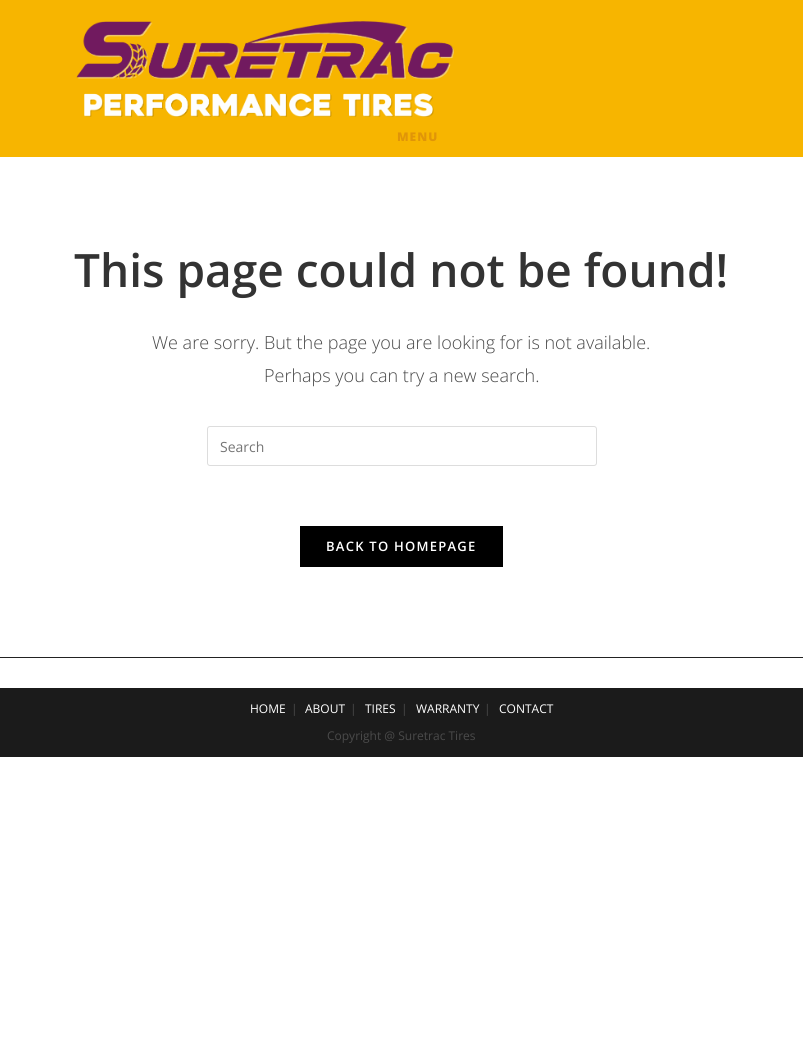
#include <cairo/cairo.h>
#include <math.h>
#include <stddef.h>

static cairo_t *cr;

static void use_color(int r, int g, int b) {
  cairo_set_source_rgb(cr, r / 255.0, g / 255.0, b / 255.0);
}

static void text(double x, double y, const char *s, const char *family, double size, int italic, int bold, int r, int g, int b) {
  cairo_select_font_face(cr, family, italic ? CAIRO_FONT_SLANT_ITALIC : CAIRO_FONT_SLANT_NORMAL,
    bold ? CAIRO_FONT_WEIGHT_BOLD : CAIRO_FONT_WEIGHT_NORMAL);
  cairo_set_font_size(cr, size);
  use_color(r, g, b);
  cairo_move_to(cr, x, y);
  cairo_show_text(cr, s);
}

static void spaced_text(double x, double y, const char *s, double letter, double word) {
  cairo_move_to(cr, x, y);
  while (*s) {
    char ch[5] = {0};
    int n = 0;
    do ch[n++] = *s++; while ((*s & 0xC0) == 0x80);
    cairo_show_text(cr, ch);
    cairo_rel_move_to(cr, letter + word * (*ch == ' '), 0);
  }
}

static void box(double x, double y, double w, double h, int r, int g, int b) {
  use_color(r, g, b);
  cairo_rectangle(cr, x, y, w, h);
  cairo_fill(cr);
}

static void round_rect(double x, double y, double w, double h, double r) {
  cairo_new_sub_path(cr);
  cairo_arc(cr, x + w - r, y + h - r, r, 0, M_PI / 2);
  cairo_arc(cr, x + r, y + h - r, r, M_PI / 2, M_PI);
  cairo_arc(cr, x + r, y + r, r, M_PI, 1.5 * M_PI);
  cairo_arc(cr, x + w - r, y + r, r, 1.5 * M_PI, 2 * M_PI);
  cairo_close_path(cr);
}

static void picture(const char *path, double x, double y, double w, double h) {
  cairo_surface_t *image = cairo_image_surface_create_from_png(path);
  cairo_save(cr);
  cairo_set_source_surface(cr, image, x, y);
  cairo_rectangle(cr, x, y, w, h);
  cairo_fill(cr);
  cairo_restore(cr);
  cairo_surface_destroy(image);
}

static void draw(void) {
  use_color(255, 255, 255);
  cairo_paint(cr);
  box(0, 0, 803, 157, 247, 181, 0);
  picture("img_01.png", 76, 21, 378, 96);
  round_rect(207.5, 426.5, 389, 39, 2.5);
  use_color(221, 221, 221);
  cairo_set_line_width(cr, 1);
  cairo_stroke(cr);
  box(300, 526, 203, 41, 0, 0, 0);
  box(0, 657, 803, 1, 34, 34, 34);
  box(0, 688, 803, 69, 27, 27, 27);
  cairo_select_font_face(cr, "Open Sans ExtraBold", CAIRO_FONT_SLANT_NORMAL, CAIRO_FONT_WEIGHT_NORMAL);
  cairo_set_font_size(cr, 12);
  use_color(224, 149, 8);
  spaced_text(397, 141, "MENU", 1, 0);
  text(74, 287, "This page could not be found!", "Open Sans SemiBold", 46, 0, 0, 51, 51, 51);
  text(152, 349, "We are sorry. But the page you are looking for is not available.", "Open Sans Light", 18, 0, 0, 74, 74, 74);
  text(264, 382, "Perhaps you can try a new search.", "Open Sans Light", 18, 0, 0, 74, 74, 74);
  text(220, 452, "Search", "Open Sans", 14, 0, 0, 117, 117, 117);
  cairo_select_font_face(cr, "Open Sans SemiBold", CAIRO_FONT_SLANT_NORMAL, CAIRO_FONT_WEIGHT_NORMAL);
  cairo_set_font_size(cr, 13);
  use_color(255, 255, 255);
  spaced_text(326, 551, "BACK TO HOMEPAGE", 1.25, 0);
  text(250, 713, "HOME", "Open Sans", 12, 0, 0, 255, 255, 255);
  text(291, 713, "|", "Open Sans", 12, 0, 0, 74, 74, 74);
  text(305, 713, "ABOUT", "Open Sans", 12, 0, 0, 255, 255, 255);
  text(350, 713, "|", "Open Sans", 12, 0, 0, 74, 74, 74);
  text(365, 713, "TIRES", "Open Sans", 12, 0, 0, 255, 255, 255);
  text(401, 713, "|", "Open Sans", 12, 0, 0, 74, 74, 74);
  text(416, 713, "WARRANTY", "Open Sans", 12, 0, 0, 255, 255, 255);
  text(484, 713, "|", "Open Sans", 12, 0, 0, 74, 74, 74);
  text(499, 713, "CONTACT", "Open Sans", 12, 0, 0, 255, 255, 255);
  text(327, 740, "Copyright @ Suretrac Tires", "Open Sans", 12, 0, 0, 74, 74, 74);
}

int main(void) {
  cairo_surface_t *surface = cairo_image_surface_create(CAIRO_FORMAT_RGB24, 803, 1058);
  cr = cairo_create(surface);
  cairo_font_options_t *options = cairo_font_options_create();
  cairo_font_options_set_hint_metrics(options, CAIRO_HINT_METRICS_OFF);
  cairo_font_options_set_hint_style(options, CAIRO_HINT_STYLE_NONE);
  cairo_set_font_options(cr, options);
  cairo_set_miter_limit(cr, 4);
  draw();
  cairo_surface_write_to_png(surface, "out.png");
  cairo_font_options_destroy(options);
  cairo_destroy(cr);
  cairo_surface_destroy(surface);
  return 0;
}
